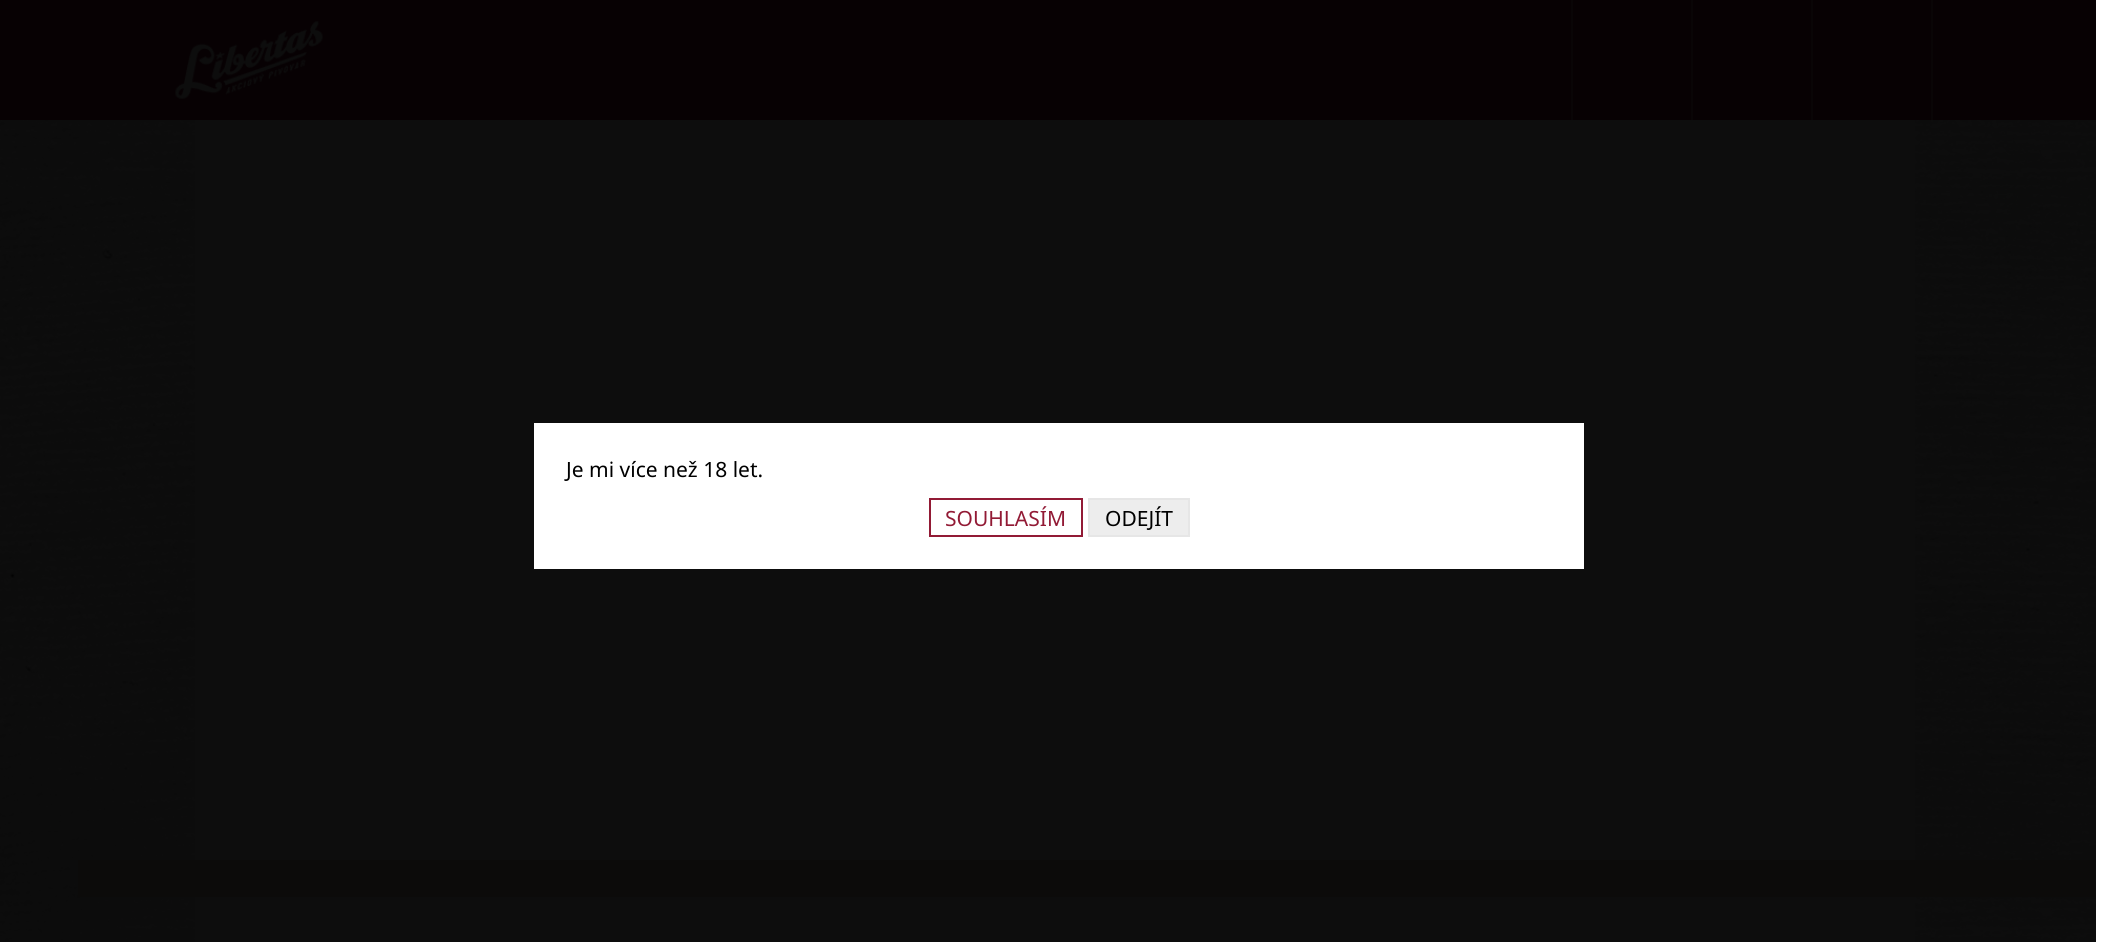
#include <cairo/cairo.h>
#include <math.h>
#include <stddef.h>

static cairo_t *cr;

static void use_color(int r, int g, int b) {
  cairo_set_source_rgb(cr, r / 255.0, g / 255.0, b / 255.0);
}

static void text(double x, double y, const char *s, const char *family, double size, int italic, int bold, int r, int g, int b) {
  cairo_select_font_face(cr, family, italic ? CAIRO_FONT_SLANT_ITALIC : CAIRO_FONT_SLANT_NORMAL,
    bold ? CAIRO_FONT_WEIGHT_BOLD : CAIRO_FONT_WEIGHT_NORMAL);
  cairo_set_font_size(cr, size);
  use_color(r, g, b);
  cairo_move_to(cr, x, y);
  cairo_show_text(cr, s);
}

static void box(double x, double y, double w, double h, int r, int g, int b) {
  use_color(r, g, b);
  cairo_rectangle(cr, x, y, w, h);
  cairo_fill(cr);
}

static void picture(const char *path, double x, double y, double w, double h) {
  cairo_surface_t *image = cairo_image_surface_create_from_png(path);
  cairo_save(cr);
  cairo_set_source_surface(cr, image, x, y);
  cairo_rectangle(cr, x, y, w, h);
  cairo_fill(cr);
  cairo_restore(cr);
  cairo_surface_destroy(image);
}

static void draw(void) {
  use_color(255, 255, 255);
  cairo_paint(cr);
  box(2095, 120, 1, 822, 13, 13, 13);
  picture("img_01.png", 0, 120, 2096, 822);
  box(0, 0, 2096, 120, 7, 1, 3);
  picture("img_02.png", 175, 21, 148, 78);
  box(1931, 0, 2, 120, 9, 5, 6);
  box(1571, 0, 2, 120, 9, 5, 6);
  box(1691, 0, 2, 120, 9, 5, 6);
  box(1811, 0, 2, 120, 9, 5, 6);
  box(195, 120, 1720, 822, 13, 13, 13);
  box(534, 423, 1050, 146, 255, 255, 255);
  cairo_rectangle(cr, 930, 499, 152, 37);
  use_color(146, 26, 53);
  cairo_stroke(cr);
  use_color(237, 237, 237);
  cairo_rectangle(cr, 1089, 499, 100, 37);
  cairo_fill_preserve(cr);
  use_color(230, 230, 230);
  cairo_stroke(cr);
  cairo_set_source_rgba(cr, 0.051, 0.047, 0.043, 0.9);
  cairo_rectangle(cr, 78, 860, 2017, 37);
  cairo_fill(cr);
  text(566, 477, "Je mi více než 18 let.", "Noto Sans", 21, 0, 0, 0, 0, 0);
  text(945, 526, "SOUHLASÍM", "Noto Sans", 21, 0, 0, 146, 26, 53);
  text(1105, 526, "ODEJÍT", "Noto Sans", 21, 0, 0, 0, 0, 0);
}

int main(void) {
  cairo_surface_t *surface = cairo_image_surface_create(CAIRO_FORMAT_RGB24, 2117, 942);
  cr = cairo_create(surface);
  cairo_font_options_t *options = cairo_font_options_create();
  cairo_font_options_set_hint_metrics(options, CAIRO_HINT_METRICS_OFF);
  cairo_font_options_set_hint_style(options, CAIRO_HINT_STYLE_NONE);
  cairo_set_font_options(cr, options);
  cairo_set_miter_limit(cr, 4);
  draw();
  cairo_surface_write_to_png(surface, "out.png");
  cairo_font_options_destroy(options);
  cairo_destroy(cr);
  cairo_surface_destroy(surface);
  return 0;
}
